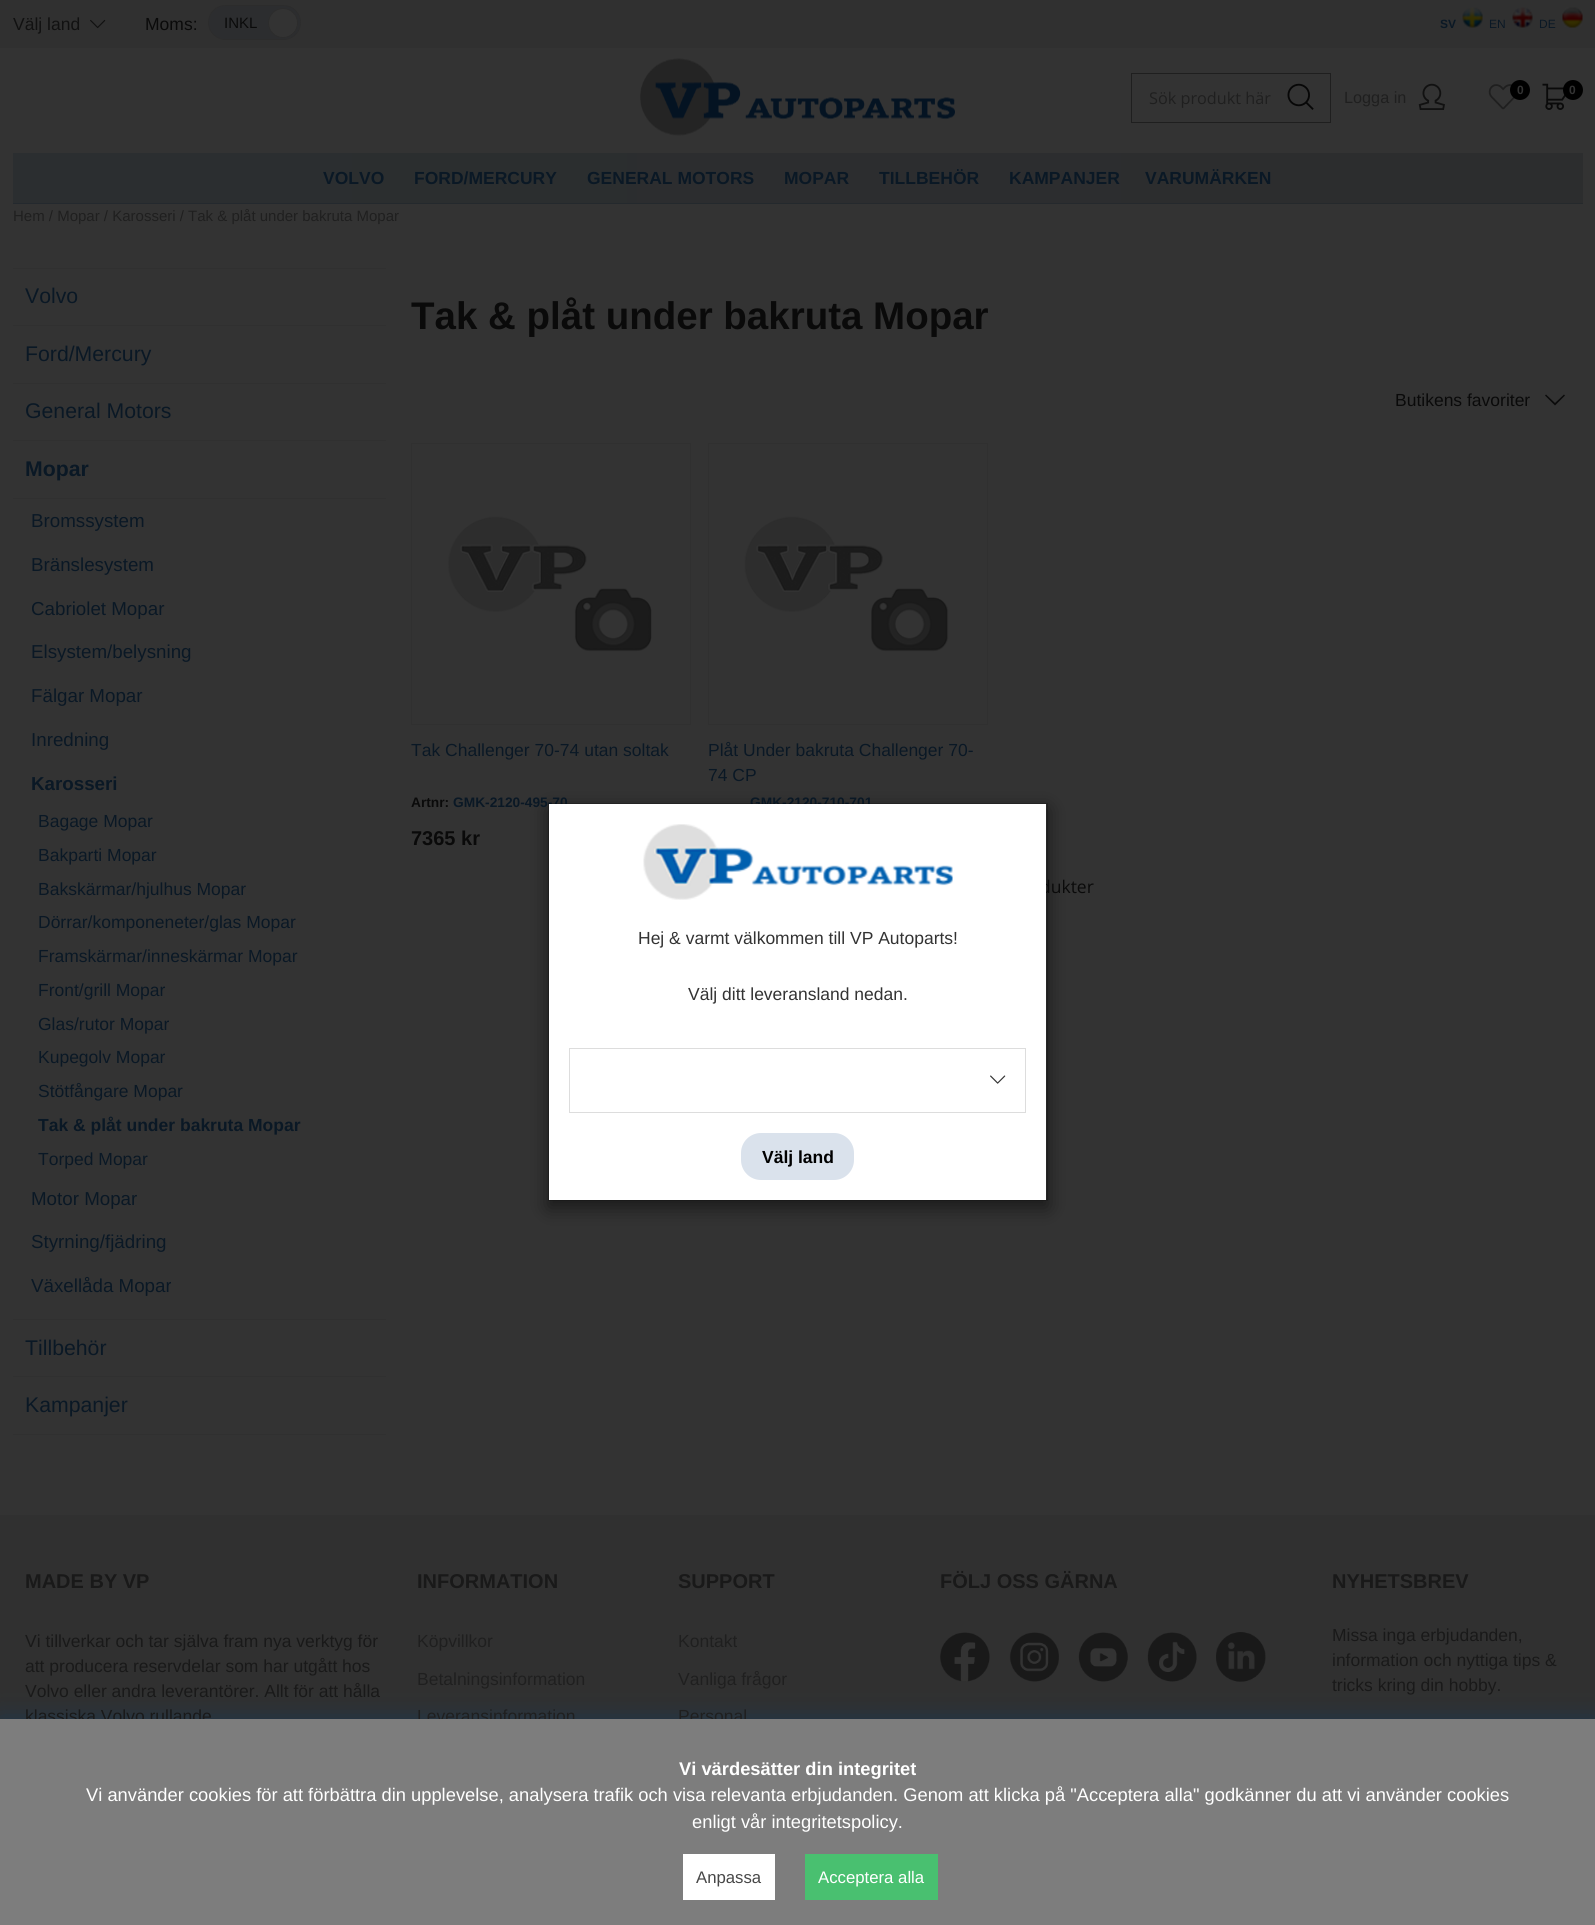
#include <cairo/cairo.h>
#include <math.h>
#include <stddef.h>

static cairo_t *cr;

static void use_color(int r, int g, int b) {
  cairo_set_source_rgb(cr, r / 255.0, g / 255.0, b / 255.0);
}

static void text(double x, double y, const char *s, const char *family, double size, int italic, int bold, int r, int g, int b) {
  cairo_select_font_face(cr, family, italic ? CAIRO_FONT_SLANT_ITALIC : CAIRO_FONT_SLANT_NORMAL,
    bold ? CAIRO_FONT_WEIGHT_BOLD : CAIRO_FONT_WEIGHT_NORMAL);
  cairo_set_font_size(cr, size);
  use_color(r, g, b);
  cairo_move_to(cr, x, y);
  cairo_show_text(cr, s);
}

static void box(double x, double y, double w, double h, int r, int g, int b) {
  use_color(r, g, b);
  cairo_rectangle(cr, x, y, w, h);
  cairo_fill(cr);
}

static void round_rect(double x, double y, double w, double h, double r) {
  cairo_new_sub_path(cr);
  cairo_arc(cr, x + w - r, y + h - r, r, 0, M_PI / 2);
  cairo_arc(cr, x + r, y + h - r, r, M_PI / 2, M_PI);
  cairo_arc(cr, x + r, y + r, r, M_PI, 1.5 * M_PI);
  cairo_arc(cr, x + w - r, y + r, r, 1.5 * M_PI, 2 * M_PI);
  cairo_close_path(cr);
}

static void shadow(double x, double y, double w, double h, double r, double blur, double alpha) {
  cairo_push_group_with_content(cr, CAIRO_CONTENT_ALPHA);
  cairo_set_operator(cr, CAIRO_OPERATOR_SOURCE);
  for (int i = 15; i >= -15 && fmin(w, h) + blur * i / 3 > 0; i -= 2) {
    double e = blur * i / 6;
    cairo_set_source_rgba(cr, 0, 0, 0, alpha * erfc((i - 1) / 8.5) / 2);
    round_rect(x - e, y - e, w + 2 * e, h + 2 * e, fmax(0, fmin(r + e + blur * .6, fmin(w, h) / 2 + e)));
    cairo_fill(cr);
  }
  cairo_pattern_t *soft = cairo_pop_group(cr);
  cairo_mask(cr, soft);
  cairo_pattern_destroy(soft);
}

static void picture(const char *path, double x, double y, double w, double h) {
  cairo_surface_t *image = cairo_image_surface_create_from_png(path);
  cairo_save(cr);
  cairo_set_source_surface(cr, image, x, y);
  cairo_rectangle(cr, x, y, w, h);
  cairo_fill(cr);
  cairo_restore(cr);
  cairo_surface_destroy(image);
}

static void draw(void) {
  cairo_pattern_t *gradient;
  use_color(51, 51, 51);
  cairo_paint(cr);
  box(0, 0, 1595, 48, 48, 48, 48);
  picture("img_01.png", 90, 19, 16, 10);
  use_color(44, 45, 47);
  round_rect(208.5, 5.5, 92, 34, 17);
  cairo_fill_preserve(cr);
  use_color(44, 44, 44);
  cairo_set_line_width(cr, 1);
  cairo_stroke(cr);
  use_color(51, 51, 51);
  cairo_arc(cr, 283, 23, 14.5, 0, 2 * M_PI);
  cairo_fill_preserve(cr);
  use_color(44, 44, 44);
  cairo_stroke(cr);
  picture("img_02.png", 1462, 7, 21, 21);
  picture("img_03.png", 1512, 7, 21, 21);
  picture("img_04.png", 1562, 7, 21, 21);
  picture("img_05.png", 640, 58, 315, 78);
  picture("img_06.png", 1488, 84, 27, 26);
  use_color(0, 0, 0);
  cairo_arc(cr, 1520, 90, 10, 0, 2 * M_PI);
  cairo_fill(cr);
  picture("img_07.png", 1542, 83, 24, 27);
  cairo_arc(cr, 1573, 90, 10, 0, 2 * M_PI);
  cairo_fill(cr);
  cairo_rectangle(cr, 1131.5, 73.5, 199, 49);
  use_color(31, 31, 31);
  cairo_stroke(cr);
  picture("img_08.png", 1287, 83, 27, 27);
  picture("img_09.png", 1418, 83, 27, 27);
  gradient = cairo_pattern_create_linear(13, 178, 1583, 177);
  cairo_pattern_add_color_stop_rgba(gradient, 0, 0.169, 0.18, 0.188, 1);
  cairo_pattern_add_color_stop_rgba(gradient, 1, 0.173, 0.176, 0.18, 1);
  cairo_set_source(cr, gradient);
  cairo_pattern_destroy(gradient);
  cairo_rectangle(cr, 13, 153, 1570, 50);
  cairo_fill(cr);
  gradient = cairo_pattern_create_linear(13, 178, 1583, 177);
  cairo_pattern_add_color_stop_rgba(gradient, 0, 0.141, 0.161, 0.18, 1);
  cairo_pattern_add_color_stop_rgba(gradient, 1, 0.145, 0.161, 0.173, 1);
  cairo_set_source(cr, gradient);
  cairo_pattern_destroy(gradient);
  cairo_rectangle(cr, 13, 203, 1570, 1);
  cairo_fill(cr);
  box(13, 268, 373, 1, 48, 48, 48);
  box(13, 325, 373, 1, 48, 48, 48);
  box(13, 383, 373, 1, 48, 48, 48);
  box(13, 440, 373, 1, 48, 48, 48);
  box(13, 498, 373, 1, 48, 48, 48);
  box(13, 1319, 373, 1, 48, 48, 48);
  box(13, 1376, 373, 1, 48, 48, 48);
  box(13, 1434, 373, 1, 48, 48, 48);
  use_color(10, 10, 10);
  cairo_new_path(cr);
  cairo_move_to(cr, 1555, 405.5);
  cairo_line_to(cr, 1545, 395.5);
  cairo_line_to(cr, 1546, 394.5);
  cairo_line_to(cr, 1555, 403);
  cairo_line_to(cr, 1564, 394.5);
  cairo_line_to(cr, 1565, 395.5);
  cairo_close_path(cr);
  cairo_fill(cr);
  cairo_rectangle(cr, 411.5, 443.5, 279, 281);
  use_color(48, 48, 48);
  cairo_stroke(cr);
  picture("img_10.png", 448, 516, 204, 136);
  cairo_rectangle(cr, 708.5, 443.5, 279, 281);
  cairo_stroke(cr);
  picture("img_11.png", 744, 516, 205, 136);
  box(0, 1515, 1595, 204, 48, 48, 48);
  picture("img_12.png", 940, 1632, 50, 50);
  picture("img_13.png", 1009, 1632, 50, 50);
  picture("img_14.png", 1078, 1632, 50, 50);
  picture("img_15.png", 1147, 1632, 50, 50);
  picture("img_16.png", 1216, 1632, 50, 50);
  use_color(0, 0, 0);
  shadow(548, 809, 500, 399, 0, 9.5, 0.5);
  use_color(0, 66, 122);
  shadow(0, 1720, 1595, 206, 0, 12.5, 0.44);
  text(13, 30, "Välj land", "Liberation Sans", 17.5, 0, 0, 17, 17, 17);
  text(145, 30, "Moms:", "Liberation Sans", 17.5, 0, 0, 10, 10, 10);
  text(224, 28, "INKL", "Liberation Sans", 15, 0, 0, 10, 10, 10);
  text(1440, 28, "SV", "Liberation Sans", 12, 0, 1, 10, 24, 37);
  text(1489, 28, "EN", "Liberation Sans", 12, 0, 0, 10, 24, 37);
  text(1539, 28, "DE", "Liberation Sans", 12, 0, 0, 10, 24, 37);
  text(1517, 94, "0", "Liberation Sans", 12, 0, 1, 51, 51, 51);
  text(1569, 94, "0", "Liberation Sans", 12, 0, 1, 51, 51, 51);
  text(1149, 104, "Sök produkt här", "Open Sans", 16.25, 0, 0, 31, 31, 31);
  text(1344, 103, "Logga in", "Liberation Sans", 16.25, 0, 0, 31, 31, 31);
  text(323, 184, "VOLVO", "Liberation Sans", 17.5, 0, 1, 10, 24, 37);
  text(414, 184, "FORD/MERCURY", "Liberation Sans", 17.5, 0, 1, 10, 24, 37);
  text(587, 184, "GENERAL MOTORS", "Liberation Sans", 17.5, 0, 1, 10, 24, 37);
  text(784, 184, "MOPAR", "Liberation Sans", 17.5, 0, 1, 10, 24, 37);
  text(879, 184, "TILLBEHÖR", "Liberation Sans", 17.5, 0, 1, 10, 24, 37);
  text(1009, 184, "KAMPANJER", "Liberation Sans", 17.5, 0, 1, 10, 24, 37);
  text(1145, 184, "VARUMÄRKEN", "Liberation Sans", 17.5, 0, 1, 10, 24, 37);
  text(13, 221, "Hem / Mopar / Karosseri / Tak & plåt under bakruta Mopar", "Liberation Sans", 15, 0, 0, 31, 31, 31);
  text(25, 303, "Volvo", "Liberation Sans", 21.25, 0, 0, 10, 24, 37);
  text(25, 361, "Ford/Mercury", "Liberation Sans", 21.25, 0, 0, 10, 24, 37);
  text(25, 418, "General Motors", "Liberation Sans", 21.25, 0, 0, 10, 24, 37);
  text(25, 476, "Mopar", "Liberation Sans", 21.25, 0, 1, 10, 24, 37);
  text(31, 527, "Bromssystem", "Liberation Sans", 18.75, 0, 0, 10, 24, 37);
  text(31, 571, "Bränslesystem", "Liberation Sans", 18.75, 0, 0, 10, 24, 37);
  text(31, 615, "Cabriolet Mopar", "Liberation Sans", 18.75, 0, 0, 10, 24, 37);
  text(31, 658, "Elsystem/belysning", "Liberation Sans", 18.75, 0, 0, 10, 24, 37);
  text(31, 702, "Fälgar Mopar", "Liberation Sans", 18.75, 0, 0, 10, 24, 37);
  text(31, 746, "Inredning", "Liberation Sans", 18.75, 0, 0, 10, 24, 37);
  text(31, 790, "Karosseri", "Liberation Sans", 18.75, 0, 1, 10, 24, 37);
  text(38, 827, "Bagage Mopar", "Liberation Sans", 17.5, 0, 0, 10, 24, 37);
  text(38, 861, "Bakparti Mopar", "Liberation Sans", 17.5, 0, 0, 10, 24, 37);
  text(38, 895, "Bakskärmar/hjulhus Mopar", "Liberation Sans", 17.5, 0, 0, 10, 24, 37);
  text(38, 928, "Dörrar/komponeneter/glas Mopar", "Liberation Sans", 17.5, 0, 0, 10, 24, 37);
  text(38, 962, "Framskärmar/inneskärmar Mopar", "Liberation Sans", 17.5, 0, 0, 10, 24, 37);
  text(38, 996, "Front/grill Mopar", "Liberation Sans", 17.5, 0, 0, 10, 24, 37);
  text(38, 1030, "Glas/rutor Mopar", "Liberation Sans", 17.5, 0, 0, 10, 24, 37);
  text(38, 1063, "Kupegolv Mopar", "Liberation Sans", 17.5, 0, 0, 10, 24, 37);
  text(38, 1097, "Stötfångare Mopar", "Liberation Sans", 17.5, 0, 0, 10, 24, 37);
  text(38, 1131, "Tak & plåt under bakruta Mopar", "Liberation Sans", 17.5, 0, 1, 10, 24, 37);
  text(38, 1165, "Torped Mopar", "Liberation Sans", 17.5, 0, 0, 10, 24, 37);
  text(31, 1205, "Motor Mopar", "Liberation Sans", 18.75, 0, 0, 10, 24, 37);
  text(31, 1248, "Styrning/fjädring", "Liberation Sans", 18.75, 0, 0, 10, 24, 37);
  text(31, 1292, "Växellåda Mopar", "Liberation Sans", 18.75, 0, 0, 10, 24, 37);
  text(25, 1355, "Tillbehör", "Liberation Sans", 21.25, 0, 0, 10, 24, 37);
  text(25, 1412, "Kampanjer", "Liberation Sans", 21.25, 0, 0, 10, 24, 37);
  text(411, 329, "Tak & plåt under bakruta Mopar", "Liberation Sans", 38.5, 0, 1, 10, 10, 10);
  text(1395, 406, "Butikens favoriter", "Liberation Sans", 17.5, 0, 0, 10, 10, 10);
  text(411, 756, "Tak Challenger 70-74 utan soltak", "Liberation Sans", 17.5, 0, 0, 10, 24, 37);
  text(411, 807, "Artnr:", "Liberation Sans", 13.75, 0, 1, 10, 10, 10);
  text(453, 807, "GMK-2120-495-70", "Liberation Sans", 13.75, 0, 1, 10, 24, 37);
  text(411, 845, "7365 kr", "Liberation Sans", 20, 0, 1, 10, 10, 10);
  text(708, 756, "Plåt Under bakruta Challenger 70-", "Liberation Sans", 17.5, 0, 0, 10, 24, 37);
  text(708, 781, "74 CP", "Liberation Sans", 17.5, 0, 0, 10, 24, 37);
  text(750, 807, "GMK-2120-710-701", "Liberation Sans", 13.75, 0, 1, 10, 24, 37);
  text(1040, 893, "dukter", "Open Sans", 17.5, 0, 0, 10, 10, 10);
  text(25, 1588, "MADE BY VP", "Liberation Sans", 20, 0, 1, 25, 25, 25);
  text(25, 1647, "Vi tillverkar och tar själva fram nya verktyg för", "Liberation Sans", 17.5, 0, 0, 25, 25, 25);
  text(25, 1672, "att producera reservdelar som har utgått hos", "Liberation Sans", 17.5, 0, 0, 25, 25, 25);
  text(25, 1697, "Volvo eller andra leverantörer. Allt för att hålla", "Liberation Sans", 17.5, 0, 0, 25, 25, 25);
  text(25, 1722, "klassiska Volvo rullande", "Liberation Sans", 17.5, 0, 0, 25, 25, 25);
  text(417, 1588, "INFORMATION", "Liberation Sans", 20, 0, 1, 25, 25, 25);
  text(417, 1647, "Köpvillkor", "Liberation Sans", 17.5, 0, 0, 31, 31, 31);
  text(417, 1685, "Betalningsinformation", "Liberation Sans", 17.5, 0, 0, 31, 31, 31);
  text(417, 1722, "Leveransinformation", "Liberation Sans", 17.5, 0, 0, 31, 31, 31);
  text(678, 1588, "SUPPORT", "Liberation Sans", 20, 0, 1, 25, 25, 25);
  text(678, 1647, "Kontakt", "Liberation Sans", 17.5, 0, 0, 31, 31, 31);
  text(678, 1685, "Vanliga frågor", "Liberation Sans", 17.5, 0, 0, 31, 31, 31);
  text(678, 1722, "Personal", "Liberation Sans", 17.5, 0, 0, 31, 31, 31);
  text(940, 1588, "FÖLJ OSS GÄRNA", "Liberation Sans", 20, 0, 1, 25, 25, 25);
  text(1332, 1588, "NYHETSBREV", "Liberation Sans", 20, 0, 1, 25, 25, 25);
  text(1332, 1641, "Missa inga erbjudanden,", "Liberation Sans", 17.5, 0, 0, 25, 25, 25);
  text(1332, 1666, "information och nyttiga tips &", "Liberation Sans", 17.5, 0, 0, 25, 25, 25);
  text(1332, 1691, "tricks kring din hobby.", "Liberation Sans", 17.5, 0, 0, 25, 25, 25);
  box(549, 804, 497, 396, 255, 255, 255);
  cairo_rectangle(cr, 548.5, 803.5, 499, 397);
  cairo_set_source_rgba(cr, 0, 0, 0, 0.2);
  cairo_stroke(cr);
  picture("img_17.png", 643, 824, 310, 76);
  text(638, 944, "Hej & varmt välkommen till VP Autoparts!", "Liberation Sans", 17.5, 0, 0, 51, 51, 51);
  text(688, 1000, "Välj ditt leveransland nedan.", "Liberation Sans", 17.5, 0, 0, 51, 51, 51);
  cairo_rectangle(cr, 569.5, 1048.5, 456, 64);
  use_color(221, 221, 221);
  cairo_stroke(cr);
  picture("img_18.png", 990, 1075, 16, 9);
  use_color(218, 226, 236);
  round_rect(741, 1133, 113, 47, 20);
  cairo_fill(cr);
  text(762, 1163, "Välj land", "Liberation Sans", 17.5, 0, 1, 0, 0, 0);
  box(0, 1719, 1595, 206, 125, 125, 125);
  text(679, 1775, "Vi värdesätter din integritet", "Liberation Sans", 18.33, 0, 1, 255, 255, 255);
  text(86, 1801, "Vi använder cookies för att förbättra din upplevelse, analysera trafik och visa relevanta erbjudanden. Genom att klicka på \"Acceptera alla\" godkänner du att vi använder cookies", "Liberation Sans", 18.33, 0, 0, 255, 255, 255);
  text(692, 1828, "enligt vår integritetspolicy.", "Liberation Sans", 18.33, 0, 0, 255, 255, 255);
  box(683, 1854, 92, 46, 255, 255, 255);
  text(696, 1883, "Anpassa", "Liberation Sans", 16.75, 0, 0, 71, 71, 71);
  box(805, 1854, 133, 46, 73, 192, 112);
  text(818, 1883, "Acceptera alla", "Liberation Sans", 16.75, 0, 0, 255, 255, 255);
}

int main(void) {
  cairo_surface_t *surface = cairo_image_surface_create(CAIRO_FORMAT_RGB24, 1595, 1925);
  cr = cairo_create(surface);
  cairo_font_options_t *options = cairo_font_options_create();
  cairo_font_options_set_hint_metrics(options, CAIRO_HINT_METRICS_OFF);
  cairo_font_options_set_hint_style(options, CAIRO_HINT_STYLE_NONE);
  cairo_set_font_options(cr, options);
  cairo_set_miter_limit(cr, 4);
  draw();
  cairo_surface_write_to_png(surface, "out.png");
  cairo_font_options_destroy(options);
  cairo_destroy(cr);
  cairo_surface_destroy(surface);
  return 0;
}
